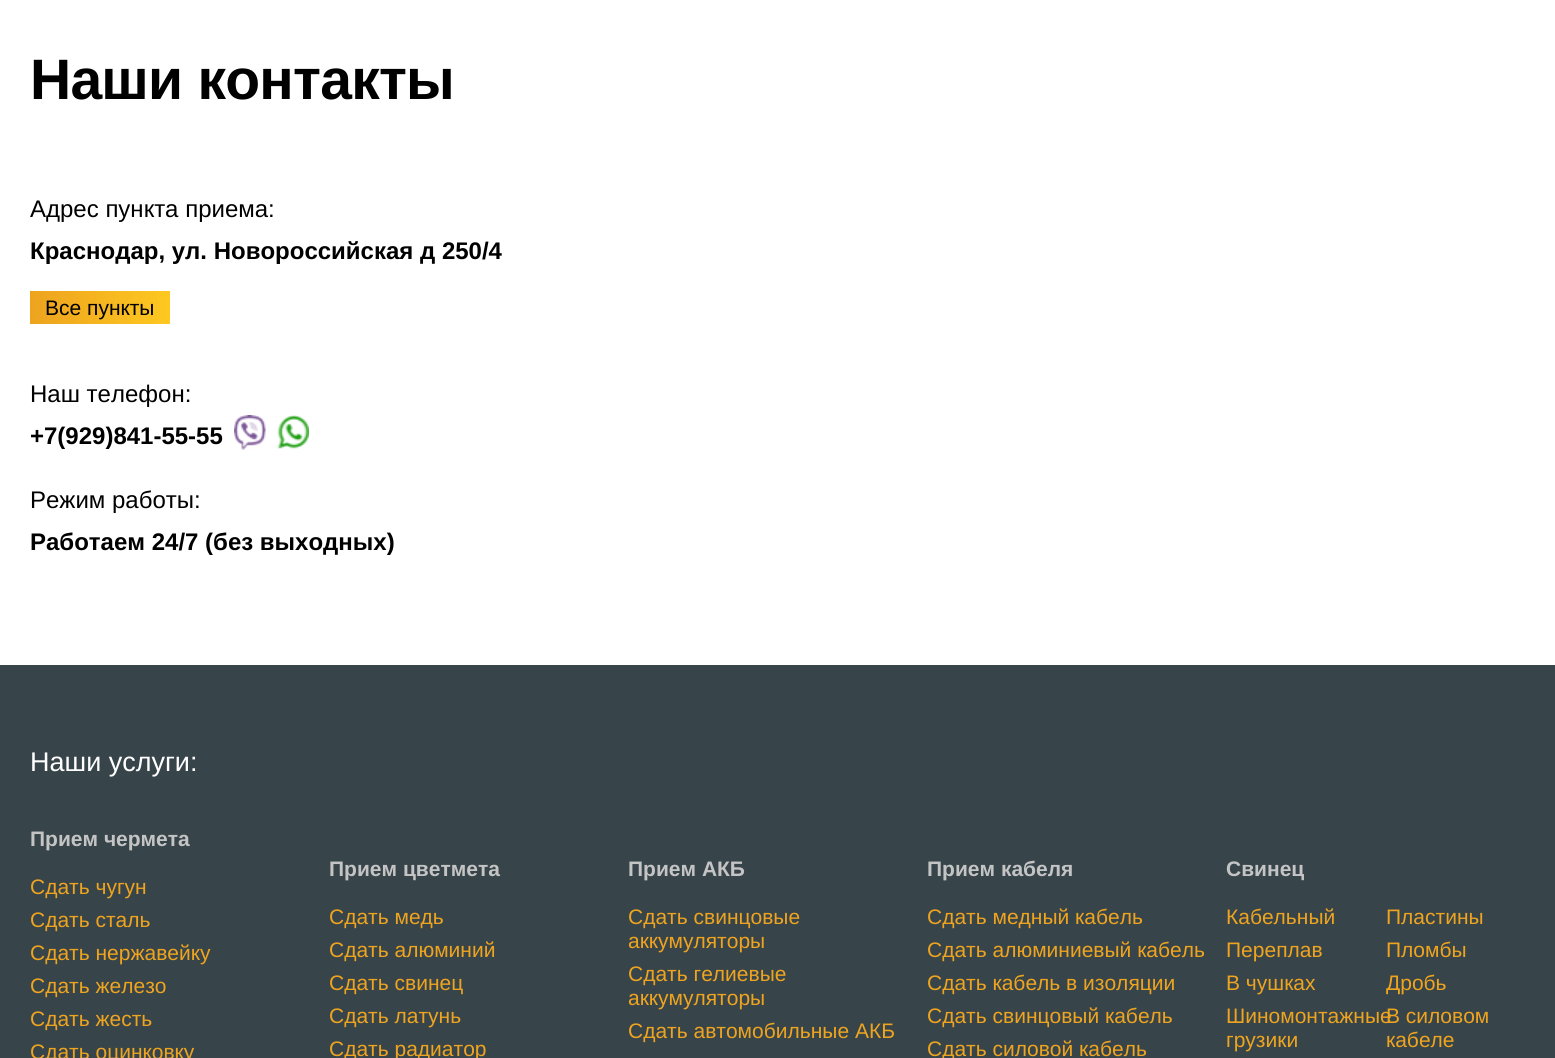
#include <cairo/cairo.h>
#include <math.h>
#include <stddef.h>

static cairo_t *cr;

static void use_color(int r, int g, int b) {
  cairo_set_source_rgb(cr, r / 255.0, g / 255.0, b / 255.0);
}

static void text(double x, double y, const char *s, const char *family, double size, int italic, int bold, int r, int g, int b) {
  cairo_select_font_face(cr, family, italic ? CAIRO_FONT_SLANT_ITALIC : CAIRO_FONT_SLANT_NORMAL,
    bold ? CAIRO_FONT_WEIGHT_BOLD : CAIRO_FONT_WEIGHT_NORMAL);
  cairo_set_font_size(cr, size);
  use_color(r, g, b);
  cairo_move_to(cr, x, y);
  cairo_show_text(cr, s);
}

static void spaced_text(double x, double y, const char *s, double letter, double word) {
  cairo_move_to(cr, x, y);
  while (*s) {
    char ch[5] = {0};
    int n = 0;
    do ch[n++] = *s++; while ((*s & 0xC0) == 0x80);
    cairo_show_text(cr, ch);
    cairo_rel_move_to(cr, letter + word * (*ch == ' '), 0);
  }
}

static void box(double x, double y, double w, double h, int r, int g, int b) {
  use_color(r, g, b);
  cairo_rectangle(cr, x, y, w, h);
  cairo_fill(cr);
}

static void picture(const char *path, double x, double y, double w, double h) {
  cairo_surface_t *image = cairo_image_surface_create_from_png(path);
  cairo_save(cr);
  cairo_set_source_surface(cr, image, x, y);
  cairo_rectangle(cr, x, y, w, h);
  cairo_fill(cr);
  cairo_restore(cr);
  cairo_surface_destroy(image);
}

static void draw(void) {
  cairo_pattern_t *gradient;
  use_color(255, 255, 255);
  cairo_paint(cr);
  gradient = cairo_pattern_create_linear(170, 308, 30, 308);
  cairo_pattern_add_color_stop_rgba(gradient, 0, 0.996, 0.784, 0.125, 1);
  cairo_pattern_add_color_stop_rgba(gradient, 1, 0.929, 0.639, 0.122, 1);
  cairo_set_source(cr, gradient);
  cairo_pattern_destroy(gradient);
  cairo_rectangle(cr, 30, 291, 140, 33);
  cairo_fill(cr);
  picture("img_01.png", 234, 415, 32, 35);
  picture("img_02.png", 277, 415, 32, 34);
  box(0, 665, 1555, 393, 55, 68, 74);
  cairo_select_font_face(cr, "Liberation Sans", CAIRO_FONT_SLANT_NORMAL, CAIRO_FONT_WEIGHT_BOLD);
  cairo_set_font_size(cr, 57);
  use_color(0, 0, 0);
  spaced_text(30, 99, "Наши контакты", -0.75, 0);
  text(30, 217, "Адрес пункта приема:", "Liberation Sans", 24, 0, 0, 0, 0, 0);
  text(30, 259, "Краснодар, ул. Новороссийская д 250/4", "Liberation Sans", 24, 0, 1, 0, 0, 0);
  text(45, 315, "Все пункты", "Liberation Sans", 21, 0, 0, 0, 0, 0);
  text(30, 402, "Наш телефон:", "Liberation Sans", 24, 0, 0, 0, 0, 0);
  text(30, 444, "+7(929)841-55-55", "Liberation Sans", 24, 0, 1, 0, 0, 0);
  text(30, 508, "Режим работы:", "Liberation Sans", 24, 0, 0, 0, 0, 0);
  text(30, 550, "Работаем 24/7 (без выходных)", "Liberation Sans", 24, 0, 1, 0, 0, 0);
  text(30, 771, "Наши услуги:", "Liberation Sans", 27, 0, 0, 255, 255, 255);
  text(30, 846, "Прием чермета", "Liberation Sans", 21, 0, 1, 196, 196, 196);
  text(30, 894, "Сдать чугун", "Liberation Sans", 21, 0, 0, 238, 164, 31);
  text(30, 927, "Сдать сталь", "Liberation Sans", 21, 0, 0, 238, 164, 31);
  text(30, 960, "Сдать нержавейку", "Liberation Sans", 21, 0, 0, 238, 164, 31);
  text(30, 993, "Сдать железо", "Liberation Sans", 21, 0, 0, 238, 164, 31);
  text(30, 1026, "Сдать жесть", "Liberation Sans", 21, 0, 0, 238, 164, 31);
  text(30, 1059, "Сдать оцинковку", "Liberation Sans", 21, 0, 0, 238, 164, 31);
  text(329, 876, "Прием цветмета", "Liberation Sans", 21, 0, 1, 196, 196, 196);
  text(329, 924, "Сдать медь", "Liberation Sans", 21, 0, 0, 238, 164, 31);
  text(329, 957, "Сдать алюминий", "Liberation Sans", 21, 0, 0, 238, 164, 31);
  text(329, 990, "Сдать свинец", "Liberation Sans", 21, 0, 0, 238, 164, 31);
  text(329, 1023, "Сдать латунь", "Liberation Sans", 21, 0, 0, 238, 164, 31);
  text(329, 1056, "Сдать радиатор", "Liberation Sans", 21, 0, 0, 238, 164, 31);
  text(628, 876, "Прием АКБ", "Liberation Sans", 21, 0, 1, 196, 196, 196);
  text(628, 924, "Сдать свинцовые", "Liberation Sans", 21, 0, 0, 238, 164, 31);
  text(628, 948, "аккумуляторы", "Liberation Sans", 21, 0, 0, 238, 164, 31);
  text(628, 981, "Сдать гелиевые", "Liberation Sans", 21, 0, 0, 238, 164, 31);
  text(628, 1005, "аккумуляторы", "Liberation Sans", 21, 0, 0, 238, 164, 31);
  text(628, 1038, "Сдать автомобильные АКБ", "Liberation Sans", 21, 0, 0, 238, 164, 31);
  text(927, 876, "Прием кабеля", "Liberation Sans", 21, 0, 1, 196, 196, 196);
  text(927, 924, "Сдать медный кабель", "Liberation Sans", 21, 0, 0, 238, 164, 31);
  text(927, 957, "Сдать алюминиевый кабель", "Liberation Sans", 21, 0, 0, 238, 164, 31);
  text(927, 990, "Сдать кабель в изоляции", "Liberation Sans", 21, 0, 0, 238, 164, 31);
  text(927, 1023, "Сдать свинцовый кабель", "Liberation Sans", 21, 0, 0, 238, 164, 31);
  text(927, 1056, "Сдать силовой кабель", "Liberation Sans", 21, 0, 0, 238, 164, 31);
  text(1226, 876, "Свинец", "Liberation Sans", 21, 0, 1, 196, 196, 196);
  text(1226, 924, "Кабельный", "Liberation Sans", 21, 0, 0, 238, 164, 31);
  text(1386, 924, "Пластины", "Liberation Sans", 21, 0, 0, 238, 164, 31);
  text(1226, 957, "Переплав", "Liberation Sans", 21, 0, 0, 238, 164, 31);
  text(1386, 957, "Пломбы", "Liberation Sans", 21, 0, 0, 238, 164, 31);
  text(1226, 990, "В чушках", "Liberation Sans", 21, 0, 0, 238, 164, 31);
  text(1386, 990, "Дробь", "Liberation Sans", 21, 0, 0, 238, 164, 31);
  text(1226, 1023, "Шиномонтажные", "Liberation Sans", 21, 0, 0, 238, 164, 31);
  text(1226, 1047, "грузики", "Liberation Sans", 21, 0, 0, 238, 164, 31);
  text(1386, 1023, "В силовом", "Liberation Sans", 21, 0, 0, 238, 164, 31);
  text(1386, 1047, "кабеле", "Liberation Sans", 21, 0, 0, 238, 164, 31);
}

int main(void) {
  cairo_surface_t *surface = cairo_image_surface_create(CAIRO_FORMAT_RGB24, 1555, 1058);
  cr = cairo_create(surface);
  cairo_font_options_t *options = cairo_font_options_create();
  cairo_font_options_set_hint_metrics(options, CAIRO_HINT_METRICS_OFF);
  cairo_font_options_set_hint_style(options, CAIRO_HINT_STYLE_NONE);
  cairo_set_font_options(cr, options);
  cairo_set_miter_limit(cr, 4);
  draw();
  cairo_surface_write_to_png(surface, "out.png");
  cairo_font_options_destroy(options);
  cairo_destroy(cr);
  cairo_surface_destroy(surface);
  return 0;
}
